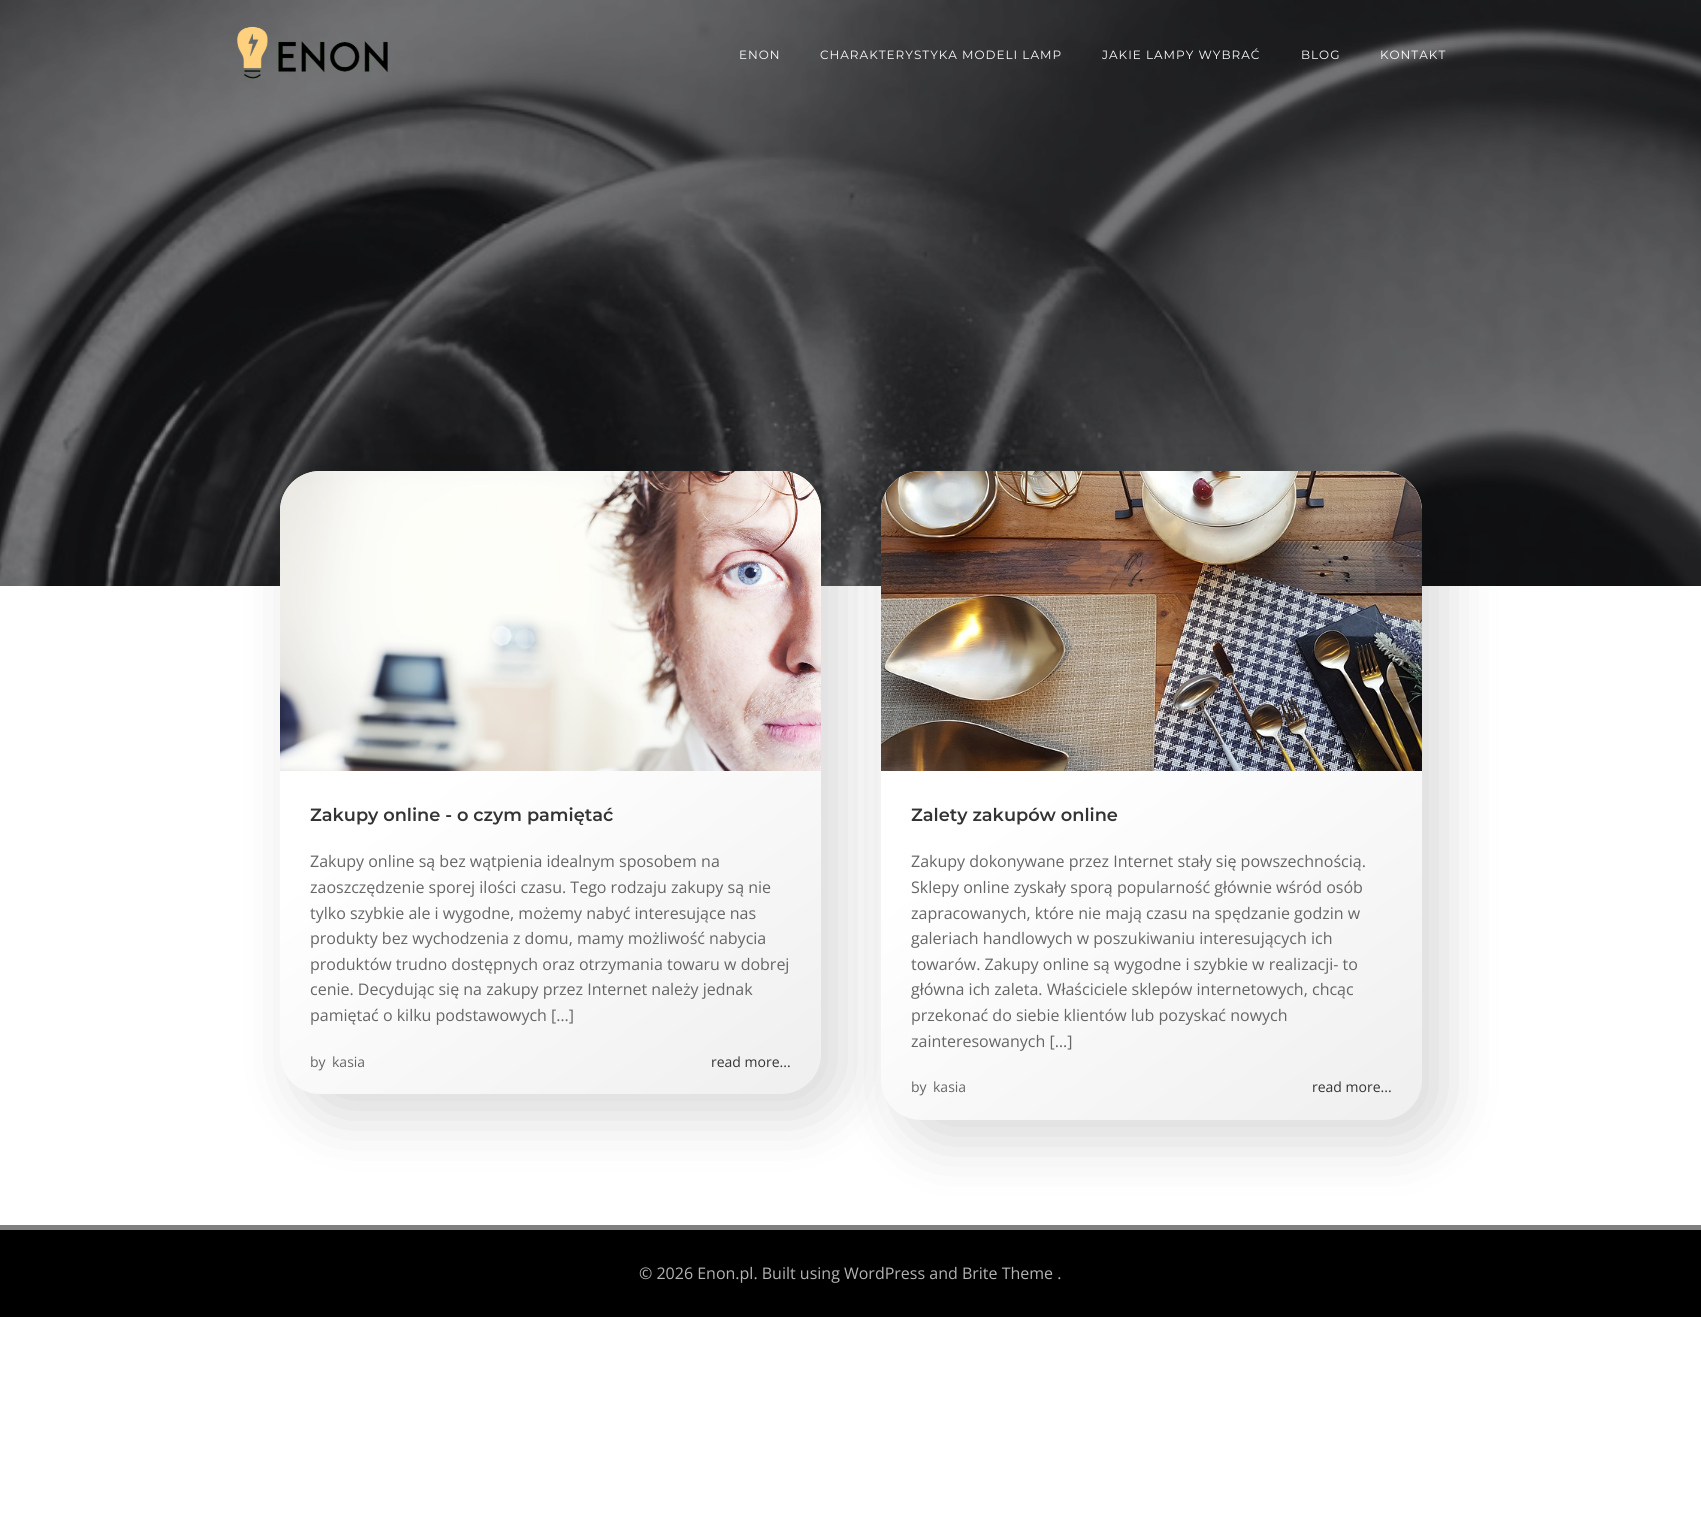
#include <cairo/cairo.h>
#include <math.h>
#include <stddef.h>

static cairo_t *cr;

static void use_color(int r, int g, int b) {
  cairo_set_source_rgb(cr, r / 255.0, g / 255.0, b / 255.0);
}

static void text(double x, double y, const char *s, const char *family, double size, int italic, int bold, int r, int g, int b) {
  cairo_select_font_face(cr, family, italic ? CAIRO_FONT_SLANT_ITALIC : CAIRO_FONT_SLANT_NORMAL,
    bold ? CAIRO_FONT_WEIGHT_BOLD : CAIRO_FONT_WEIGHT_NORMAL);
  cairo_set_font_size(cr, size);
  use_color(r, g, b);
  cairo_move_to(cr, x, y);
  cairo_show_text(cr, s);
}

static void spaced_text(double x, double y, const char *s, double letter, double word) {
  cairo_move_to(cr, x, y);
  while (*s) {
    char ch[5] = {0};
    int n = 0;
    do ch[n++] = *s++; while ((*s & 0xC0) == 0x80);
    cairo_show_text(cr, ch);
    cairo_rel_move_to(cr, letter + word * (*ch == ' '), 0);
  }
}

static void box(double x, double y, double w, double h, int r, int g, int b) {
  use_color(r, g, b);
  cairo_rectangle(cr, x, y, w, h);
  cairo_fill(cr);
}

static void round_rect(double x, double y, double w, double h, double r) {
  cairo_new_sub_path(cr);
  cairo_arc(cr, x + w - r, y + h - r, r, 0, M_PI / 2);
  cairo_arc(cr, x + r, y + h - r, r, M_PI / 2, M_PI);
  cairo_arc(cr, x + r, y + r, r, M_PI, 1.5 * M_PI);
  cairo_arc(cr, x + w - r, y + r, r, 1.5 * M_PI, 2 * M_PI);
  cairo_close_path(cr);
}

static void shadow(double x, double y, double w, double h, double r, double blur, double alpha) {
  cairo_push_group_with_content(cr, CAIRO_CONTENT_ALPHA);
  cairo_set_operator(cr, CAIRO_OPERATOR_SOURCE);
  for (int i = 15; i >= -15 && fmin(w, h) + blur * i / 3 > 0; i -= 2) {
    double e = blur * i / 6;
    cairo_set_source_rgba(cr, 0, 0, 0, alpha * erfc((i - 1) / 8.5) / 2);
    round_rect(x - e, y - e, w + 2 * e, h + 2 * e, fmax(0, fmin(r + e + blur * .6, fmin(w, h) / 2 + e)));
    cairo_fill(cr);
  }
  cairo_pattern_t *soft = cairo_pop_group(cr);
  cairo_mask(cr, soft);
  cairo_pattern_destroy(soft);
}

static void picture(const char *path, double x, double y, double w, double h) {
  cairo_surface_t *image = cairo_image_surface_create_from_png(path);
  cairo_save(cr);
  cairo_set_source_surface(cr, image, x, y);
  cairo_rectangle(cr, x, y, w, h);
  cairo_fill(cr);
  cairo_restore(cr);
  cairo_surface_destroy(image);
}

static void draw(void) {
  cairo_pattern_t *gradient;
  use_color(255, 255, 255);
  cairo_paint(cr);
  picture("img_01.png", 0, 0, 1701, 586);
  picture("img_02.png", 237, 26, 151, 53);
  use_color(0, 0, 0);
  shadow(298, 489, 545, 627, 42, 30, 0.15);
  gradient = cairo_pattern_create_linear(315, 446, 786, 1119);
  cairo_pattern_add_color_stop_rgba(gradient, 0.42, 1, 1, 1, 1);
  cairo_pattern_add_color_stop_rgba(gradient, 1, 0.937, 0.937, 0.937, 1);
  cairo_set_source(cr, gradient);
  cairo_pattern_destroy(gradient);
  round_rect(280, 471, 541, 623, 40);
  cairo_fill(cr);
  picture("img_03.png", 280, 471, 541, 300);
  box(0, 1230, 1701, 87, 0, 0, 0);
  box(0, 1225, 1701, 5, 128, 128, 128);
  use_color(0, 0, 0);
  shadow(899, 489, 545, 653, 42, 30, 0.15);
  gradient = cairo_pattern_create_linear(910, 451, 1393, 1140);
  cairo_pattern_add_color_stop_rgba(gradient, 0.42, 1, 1, 1, 1);
  cairo_pattern_add_color_stop_rgba(gradient, 1, 0.937, 0.937, 0.937, 1);
  cairo_set_source(cr, gradient);
  cairo_pattern_destroy(gradient);
  round_rect(881, 471, 541, 649, 40);
  cairo_fill(cr);
  picture("img_04.png", 881, 471, 541, 300);
  cairo_select_font_face(cr, "Montserrat", CAIRO_FONT_SLANT_NORMAL, CAIRO_FONT_WEIGHT_NORMAL);
  cairo_set_font_size(cr, 12);
  use_color(255, 255, 255);
  spaced_text(739, 59, "ENON", 1, 0);
  spaced_text(820, 59, "CHARAKTERYSTYKA MODELI LAMP", 1, 0);
  spaced_text(1102, 59, "JAKIE LAMPY WYBRAĆ", 1, 0);
  spaced_text(1301, 59, "BLOG", 1, 0);
  spaced_text(1380, 59, "KONTAKT", 1, 0);
  text(310, 821, "Zakupy online - o czym pamiętać", "Montserrat SemiBold", 17.75, 0, 0, 51, 51, 51);
  text(310, 867, "Zakupy online są bez wątpienia idealnym sposobem na", "Open Sans", 16, 0, 0, 102, 102, 102);
  text(310, 893, "zaoszczędzenie sporej ilości czasu. Tego rodzaju zakupy są nie", "Open Sans", 16, 0, 0, 102, 102, 102);
  text(310, 919, "tylko szybkie ale i wygodne, możemy nabyć interesujące nas", "Open Sans", 16, 0, 0, 102, 102, 102);
  text(310, 944, "produkty bez wychodzenia z domu, mamy możliwość nabycia", "Open Sans", 16, 0, 0, 102, 102, 102);
  text(310, 970, "produktów trudno dostępnych oraz otrzymania towaru w dobrej", "Open Sans", 16, 0, 0, 102, 102, 102);
  text(310, 995, "cenie. Decydując się na zakupy przez Internet należy jednak", "Open Sans", 16, 0, 0, 102, 102, 102);
  text(310, 1021, "pamiętać o kilku podstawowych […]", "Open Sans", 16, 0, 0, 102, 102, 102);
  text(310, 1067, "by", "Open Sans", 14, 0, 0, 102, 102, 102);
  text(332, 1067, "kasia", "Open Sans", 14, 0, 0, 102, 102, 102);
  text(711, 1067, "read more...", "Open Sans", 14, 0, 0, 51, 51, 51);
  text(911, 821, "Zalety zakupów online", "Montserrat SemiBold", 17.75, 0, 0, 51, 51, 51);
  text(911, 867, "Zakupy dokonywane przez Internet stały się powszechnością.", "Open Sans", 16, 0, 0, 102, 102, 102);
  text(911, 893, "Sklepy online zyskały sporą popularność głównie wśród osób", "Open Sans", 16, 0, 0, 102, 102, 102);
  text(911, 919, "zapracowanych, które nie mają czasu na spędzanie godzin w", "Open Sans", 16, 0, 0, 102, 102, 102);
  text(911, 944, "galeriach handlowych w poszukiwaniu interesujących ich", "Open Sans", 16, 0, 0, 102, 102, 102);
  text(911, 970, "towarów. Zakupy online są wygodne i szybkie w realizacji- to", "Open Sans", 16, 0, 0, 102, 102, 102);
  text(911, 995, "główna ich zaleta. Właściciele sklepów internetowych, chcąc", "Open Sans", 16, 0, 0, 102, 102, 102);
  text(911, 1021, "przekonać do siebie klientów lub pozyskać nowych", "Open Sans", 16, 0, 0, 102, 102, 102);
  text(911, 1047, "zainteresowanych […]", "Open Sans", 16, 0, 0, 102, 102, 102);
  text(911, 1092, "by", "Open Sans", 14, 0, 0, 102, 102, 102);
  text(933, 1092, "kasia", "Open Sans", 14, 0, 0, 102, 102, 102);
  text(1312, 1092, "read more...", "Open Sans", 14, 0, 0, 51, 51, 51);
  text(639, 1279, "© 2026 Enon.pl. Built using WordPress and Brite Theme .", "Open Sans", 16, 0, 0, 179, 179, 179);
}

int main(void) {
  cairo_surface_t *surface = cairo_image_surface_create(CAIRO_FORMAT_RGB24, 1701, 1520);
  cr = cairo_create(surface);
  cairo_font_options_t *options = cairo_font_options_create();
  cairo_font_options_set_hint_metrics(options, CAIRO_HINT_METRICS_OFF);
  cairo_font_options_set_hint_style(options, CAIRO_HINT_STYLE_NONE);
  cairo_set_font_options(cr, options);
  cairo_set_miter_limit(cr, 4);
  draw();
  cairo_surface_write_to_png(surface, "out.png");
  cairo_font_options_destroy(options);
  cairo_destroy(cr);
  cairo_surface_destroy(surface);
  return 0;
}
